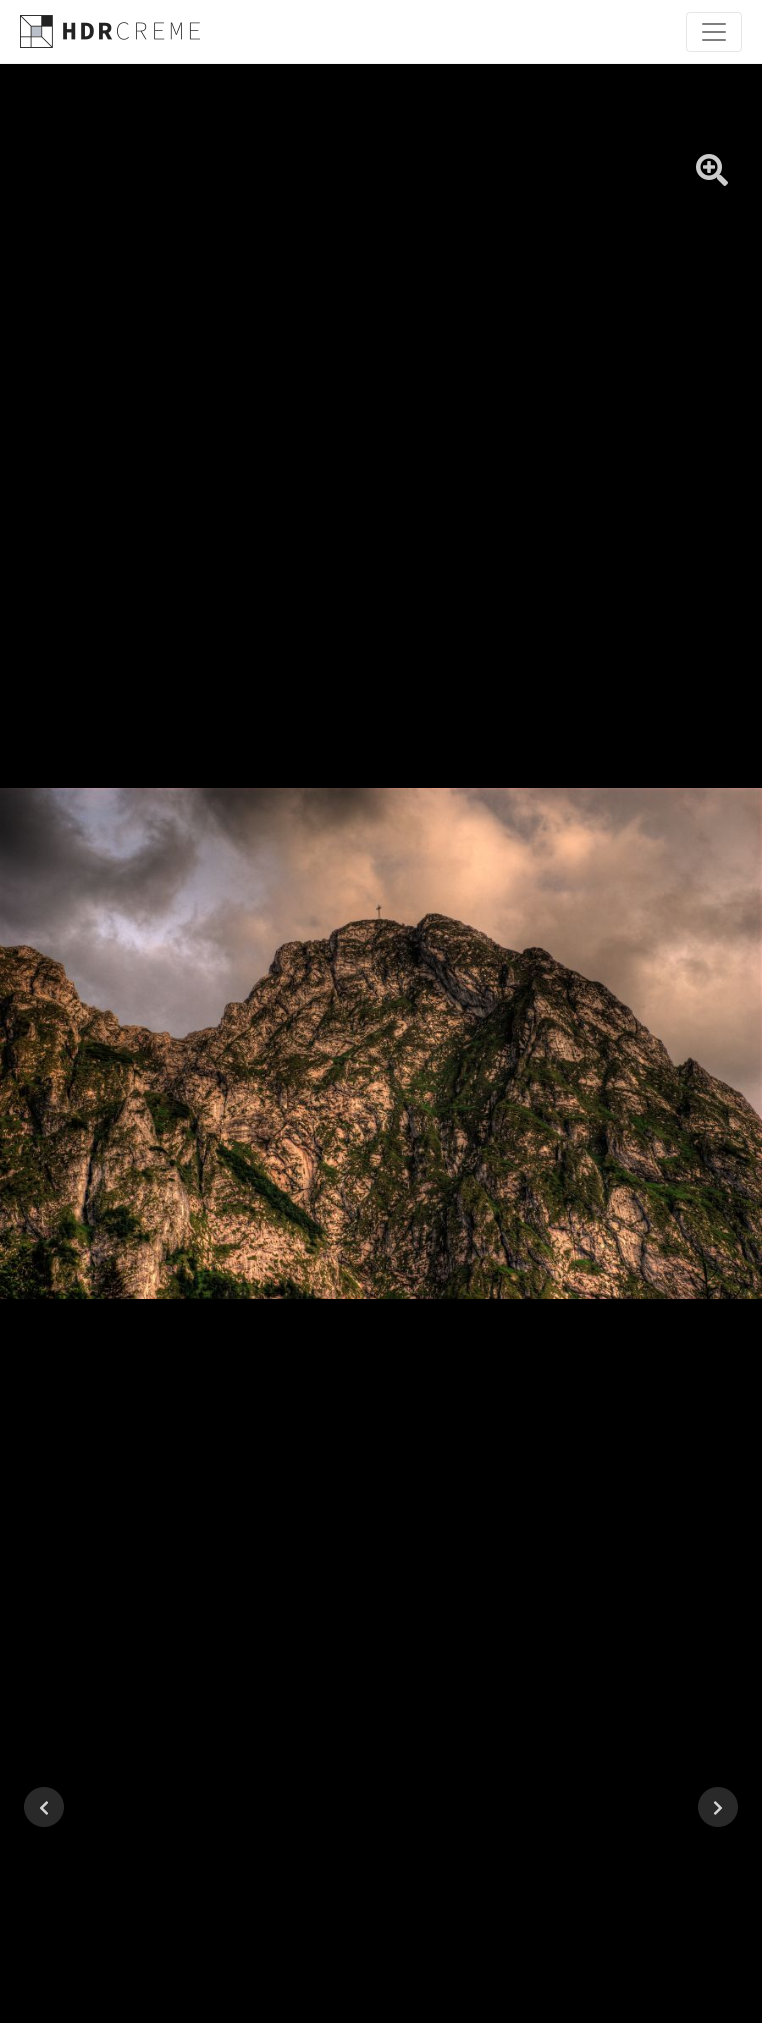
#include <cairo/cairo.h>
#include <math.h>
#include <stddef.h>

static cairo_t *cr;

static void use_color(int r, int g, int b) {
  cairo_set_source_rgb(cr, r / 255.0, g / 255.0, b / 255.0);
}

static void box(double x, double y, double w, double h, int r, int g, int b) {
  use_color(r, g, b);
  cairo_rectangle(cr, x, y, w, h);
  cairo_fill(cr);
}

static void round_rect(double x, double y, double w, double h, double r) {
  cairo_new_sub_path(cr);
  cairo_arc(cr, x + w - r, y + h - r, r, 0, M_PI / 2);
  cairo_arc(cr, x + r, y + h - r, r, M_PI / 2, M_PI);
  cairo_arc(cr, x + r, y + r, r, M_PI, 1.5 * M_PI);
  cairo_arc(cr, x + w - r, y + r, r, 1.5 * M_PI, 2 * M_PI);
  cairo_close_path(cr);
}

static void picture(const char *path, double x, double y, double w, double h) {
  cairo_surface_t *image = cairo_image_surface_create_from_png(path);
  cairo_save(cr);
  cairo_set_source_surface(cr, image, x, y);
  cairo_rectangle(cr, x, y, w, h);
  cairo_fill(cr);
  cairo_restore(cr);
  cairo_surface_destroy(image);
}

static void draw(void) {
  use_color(255, 255, 255);
  cairo_paint(cr);
  box(0, 63, 762, 1, 242, 242, 242);
  picture("img_01.png", 20, 15, 180, 33);
  round_rect(686.5, 12.5, 55, 39, 3.5);
  use_color(230, 230, 230);
  cairo_set_line_width(cr, 1);
  cairo_stroke(cr);
  picture("img_02.png", 702, 23, 24, 18);
  box(0, 64, 762, 1959, 0, 0, 0);
  picture("img_03.png", 696, 154, 32, 32);
  picture("img_04.png", 0, 788, 762, 511);
  use_color(41, 41, 41);
  cairo_arc(cr, 44, 1807, 20, 0, 2 * M_PI);
  cairo_fill(cr);
  picture("img_05.png", 39, 1801, 10, 14);
  cairo_arc(cr, 718, 1807, 20, 0, 2 * M_PI);
  cairo_fill(cr);
  picture("img_06.png", 713, 1801, 10, 14);
}

int main(void) {
  cairo_surface_t *surface = cairo_image_surface_create(CAIRO_FORMAT_RGB24, 762, 2023);
  cr = cairo_create(surface);
  cairo_font_options_t *options = cairo_font_options_create();
  cairo_font_options_set_hint_metrics(options, CAIRO_HINT_METRICS_OFF);
  cairo_font_options_set_hint_style(options, CAIRO_HINT_STYLE_NONE);
  cairo_set_font_options(cr, options);
  cairo_set_miter_limit(cr, 4);
  draw();
  cairo_surface_write_to_png(surface, "out.png");
  cairo_font_options_destroy(options);
  cairo_destroy(cr);
  cairo_surface_destroy(surface);
  return 0;
}
